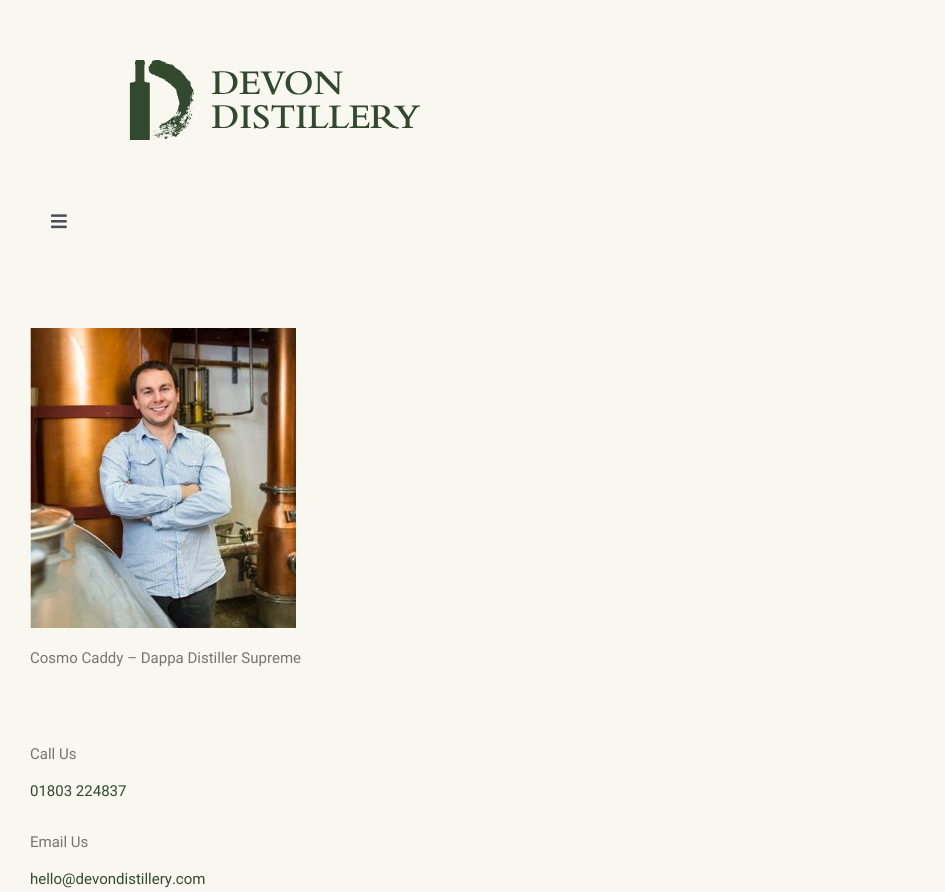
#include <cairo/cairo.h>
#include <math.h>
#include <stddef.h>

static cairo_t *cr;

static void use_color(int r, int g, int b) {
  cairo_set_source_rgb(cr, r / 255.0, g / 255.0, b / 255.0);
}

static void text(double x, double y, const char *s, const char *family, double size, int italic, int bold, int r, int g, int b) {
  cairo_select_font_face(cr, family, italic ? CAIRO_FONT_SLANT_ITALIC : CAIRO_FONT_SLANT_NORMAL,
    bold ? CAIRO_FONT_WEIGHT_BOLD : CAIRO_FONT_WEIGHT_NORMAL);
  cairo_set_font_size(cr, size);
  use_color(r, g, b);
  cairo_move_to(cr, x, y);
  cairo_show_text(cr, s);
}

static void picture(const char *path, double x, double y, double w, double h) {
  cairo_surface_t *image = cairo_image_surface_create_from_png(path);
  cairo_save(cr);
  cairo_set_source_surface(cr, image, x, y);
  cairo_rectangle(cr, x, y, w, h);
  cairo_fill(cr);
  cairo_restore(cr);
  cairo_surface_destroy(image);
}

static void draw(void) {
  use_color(248, 247, 240);
  cairo_paint(cr);
  picture("img_01.png", 129, 60, 291, 80);
  picture("img_02.png", 51, 214, 16, 15);
  picture("img_03.png", 30, 328, 266, 300);
  text(30, 663, "Cosmo Caddy – Dappa Distiller Supreme", "Roboto", 15, 0, 0, 116, 116, 116);
  text(30, 759, "Call Us", "Roboto", 15, 0, 0, 116, 116, 116);
  text(30, 796, "01803 224837", "Roboto", 15, 0, 0, 50, 72, 47);
  text(30, 847, "Email Us", "Roboto", 15, 0, 0, 116, 116, 116);
  text(30, 884, "hello@devondistillery.com", "Roboto", 15, 0, 0, 50, 72, 47);
}

int main(void) {
  cairo_surface_t *surface = cairo_image_surface_create(CAIRO_FORMAT_RGB24, 945, 892);
  cr = cairo_create(surface);
  cairo_font_options_t *options = cairo_font_options_create();
  cairo_font_options_set_hint_metrics(options, CAIRO_HINT_METRICS_OFF);
  cairo_font_options_set_hint_style(options, CAIRO_HINT_STYLE_NONE);
  cairo_set_font_options(cr, options);
  cairo_set_miter_limit(cr, 4);
  draw();
  cairo_surface_write_to_png(surface, "out.png");
  cairo_font_options_destroy(options);
  cairo_destroy(cr);
  cairo_surface_destroy(surface);
  return 0;
}
